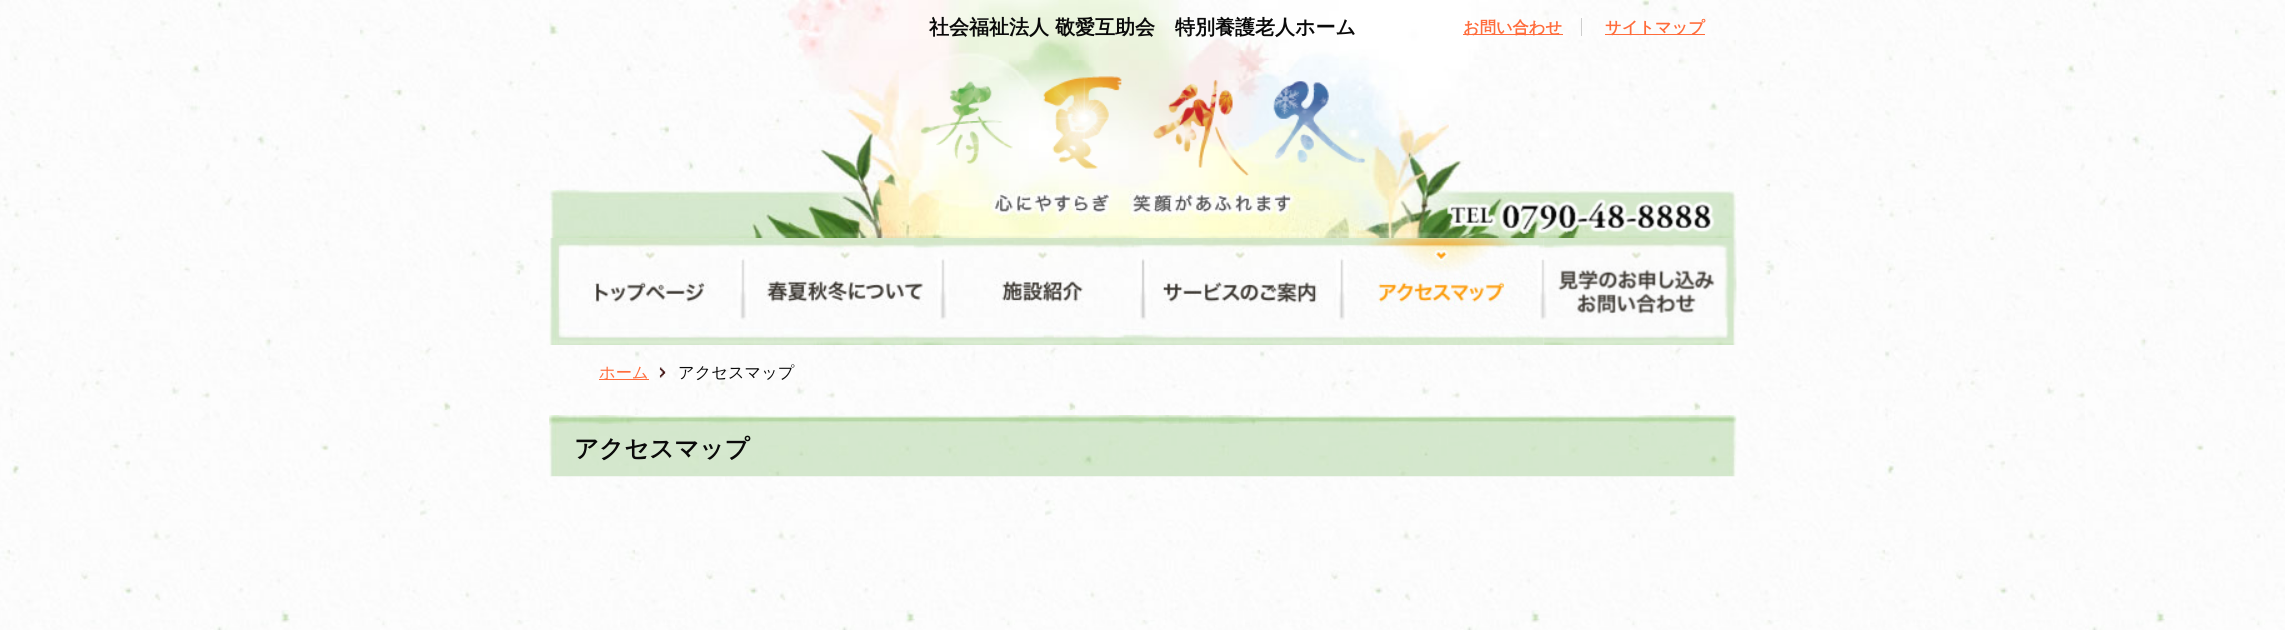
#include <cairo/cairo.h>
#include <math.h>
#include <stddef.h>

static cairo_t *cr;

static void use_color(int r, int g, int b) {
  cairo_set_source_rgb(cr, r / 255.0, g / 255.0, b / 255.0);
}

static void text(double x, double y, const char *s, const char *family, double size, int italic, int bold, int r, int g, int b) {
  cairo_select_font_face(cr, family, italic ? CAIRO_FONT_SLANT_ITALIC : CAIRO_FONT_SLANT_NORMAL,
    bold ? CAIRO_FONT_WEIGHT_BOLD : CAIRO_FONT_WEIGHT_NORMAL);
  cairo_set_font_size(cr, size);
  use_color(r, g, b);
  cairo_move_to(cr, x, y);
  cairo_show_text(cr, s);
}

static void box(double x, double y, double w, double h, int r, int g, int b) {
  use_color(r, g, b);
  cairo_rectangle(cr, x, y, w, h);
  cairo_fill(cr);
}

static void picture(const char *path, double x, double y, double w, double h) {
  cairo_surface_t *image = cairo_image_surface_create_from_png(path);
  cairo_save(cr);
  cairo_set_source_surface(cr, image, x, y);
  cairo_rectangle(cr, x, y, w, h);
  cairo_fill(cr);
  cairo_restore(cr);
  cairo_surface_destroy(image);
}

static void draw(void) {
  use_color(255, 255, 255);
  cairo_paint(cr);
  picture("img_01.png", 0, 0, 2285, 630);
  picture("img_05.png", 549, 237, 195, 108);
  picture("img_06.png", 549, 237, 195, 108);
  picture("img_07.png", 743, 237, 201, 108);
  picture("img_08.png", 743, 237, 201, 108);
  picture("img_09.png", 943, 237, 200, 108);
  picture("img_10.png", 943, 237, 200, 108);
  picture("img_11.png", 1142, 237, 201, 108);
  picture("img_12.png", 1142, 237, 201, 108);
  picture("img_13.png", 1342, 237, 202, 108);
  picture("img_14.png", 1543, 237, 194, 108);
  picture("img_15.png", 1543, 237, 194, 108);
  picture("img_02.png", 549, 0, 1187, 238);
  box(1581, 18, 1, 18, 206, 206, 206);
  cairo_set_source_rgba(cr, 1, 0.4, 0.2, 0.96);
  cairo_rectangle(cr, 1463, 34, 100, 1);
  cairo_fill(cr);
  cairo_rectangle(cr, 1605, 34, 100, 1);
  cairo_fill(cr);
  picture("img_03.png", 920, 76, 446, 100);
  picture("img_04.png", 1447, 199, 268, 35);
  cairo_rectangle(cr, 599, 379, 50, 1);
  cairo_fill(cr);
  picture("img_16.png", 659, 367, 7, 11);
  picture("img_17.png", 549, 415, 1188, 62);
  text(929, 34, "社会福祉法人 敬愛互助会　特別養護老人ホーム", "WenQuanYi Zen Hei", 20, 0, 1, 10, 10, 10);
  text(1463, 33, "お問い合わせ", "WenQuanYi Zen Hei", 16.25, 0, 1, 255, 108, 59);
  text(1605, 33, "サイトマップ", "WenQuanYi Zen Hei", 16.25, 0, 1, 255, 108, 59);
  text(599, 378, "ホーム", "WenQuanYi Zen Hei Medium", 16.25, 0, 0, 255, 108, 59);
  text(678, 378, "アクセスマップ", "WenQuanYi Zen Hei Medium", 16.25, 0, 0, 10, 10, 10);
  text(574, 457, "アクセスマップ", "WenQuanYi Zen Hei", 24.5, 0, 1, 10, 10, 10);
}

int main(void) {
  cairo_surface_t *surface = cairo_image_surface_create(CAIRO_FORMAT_RGB24, 2285, 630);
  cr = cairo_create(surface);
  cairo_font_options_t *options = cairo_font_options_create();
  cairo_font_options_set_hint_metrics(options, CAIRO_HINT_METRICS_OFF);
  cairo_font_options_set_hint_style(options, CAIRO_HINT_STYLE_NONE);
  cairo_set_font_options(cr, options);
  cairo_set_miter_limit(cr, 4);
  draw();
  cairo_surface_write_to_png(surface, "out.png");
  cairo_font_options_destroy(options);
  cairo_destroy(cr);
  cairo_surface_destroy(surface);
  return 0;
}
